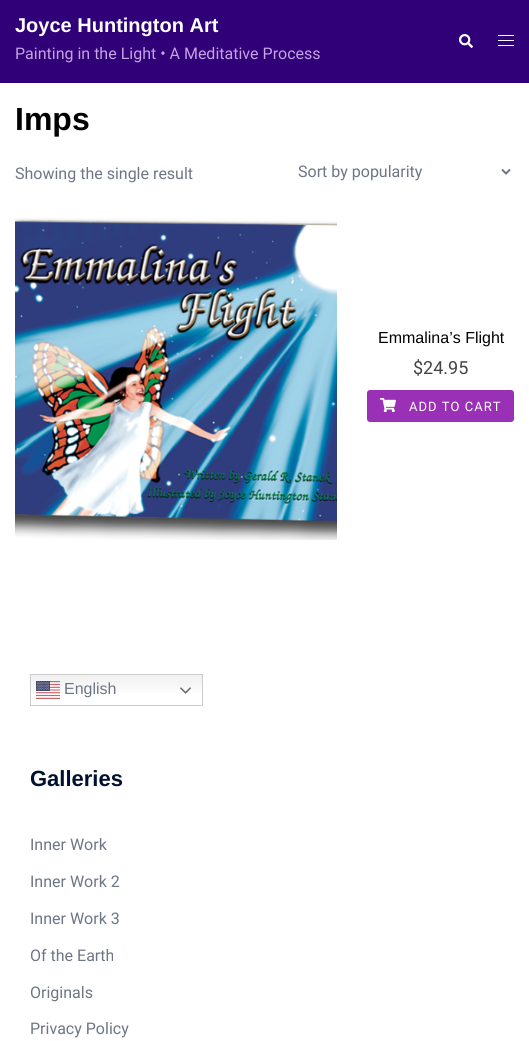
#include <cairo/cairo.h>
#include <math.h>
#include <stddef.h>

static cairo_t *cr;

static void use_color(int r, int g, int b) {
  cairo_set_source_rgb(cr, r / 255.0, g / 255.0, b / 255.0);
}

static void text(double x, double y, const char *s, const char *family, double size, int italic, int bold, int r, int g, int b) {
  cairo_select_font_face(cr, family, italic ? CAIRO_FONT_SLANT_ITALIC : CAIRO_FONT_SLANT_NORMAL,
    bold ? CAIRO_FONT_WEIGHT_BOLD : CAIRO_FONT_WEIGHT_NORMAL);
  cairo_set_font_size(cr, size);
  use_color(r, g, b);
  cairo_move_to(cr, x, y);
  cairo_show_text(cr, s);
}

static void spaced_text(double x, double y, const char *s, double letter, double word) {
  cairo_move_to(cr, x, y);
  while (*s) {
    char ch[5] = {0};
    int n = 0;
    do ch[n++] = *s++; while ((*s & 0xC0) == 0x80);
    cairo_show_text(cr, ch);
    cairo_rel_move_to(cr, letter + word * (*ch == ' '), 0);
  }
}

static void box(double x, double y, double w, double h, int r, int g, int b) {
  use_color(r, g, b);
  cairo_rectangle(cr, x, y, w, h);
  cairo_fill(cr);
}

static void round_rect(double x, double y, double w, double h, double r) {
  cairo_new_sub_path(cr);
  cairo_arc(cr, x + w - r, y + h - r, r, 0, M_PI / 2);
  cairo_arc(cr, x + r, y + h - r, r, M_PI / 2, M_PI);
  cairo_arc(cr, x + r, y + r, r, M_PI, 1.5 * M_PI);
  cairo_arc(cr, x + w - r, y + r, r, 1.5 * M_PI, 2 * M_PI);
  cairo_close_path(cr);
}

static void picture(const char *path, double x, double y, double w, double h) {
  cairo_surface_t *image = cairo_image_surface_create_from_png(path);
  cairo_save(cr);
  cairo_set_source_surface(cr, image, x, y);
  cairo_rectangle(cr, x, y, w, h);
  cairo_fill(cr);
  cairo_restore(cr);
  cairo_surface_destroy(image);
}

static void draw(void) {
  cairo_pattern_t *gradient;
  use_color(255, 255, 255);
  cairo_paint(cr);
  box(0, 0, 529, 83, 47, 0, 119);
  picture("img_01.png", 459, 34, 14, 14);
  box(498, 35, 16, 1, 255, 255, 255);
  box(498, 40, 16, 1, 255, 255, 255);
  box(498, 45, 16, 1, 255, 255, 255);
  cairo_new_path(cr);
  cairo_move_to(cr, 502, 169.5);
  cairo_line_to(cr, 506, 173.5);
  cairo_line_to(cr, 510, 169.5);
  use_color(109, 118, 133);
  cairo_stroke(cr);
  picture("img_02.png", 15, 218, 322, 322);
  use_color(154, 48, 181);
  round_rect(367, 390, 147, 32, 3);
  cairo_fill(cr);
  picture("img_03.png", 380, 398, 16, 14);
  gradient = cairo_pattern_create_linear(117, 674, 117, 706);
  cairo_pattern_add_color_stop_rgba(gradient, 0, 0.937, 0.937, 0.937, 1);
  cairo_pattern_add_color_stop_rgba(gradient, 0.7, 1, 1, 1, 1);
  cairo_set_source(cr, gradient);
  cairo_pattern_destroy(gradient);
  cairo_rectangle(cr, 31, 675, 171, 18);
  cairo_fill(cr);
  cairo_rectangle(cr, 30.5, 674.5, 172, 31);
  use_color(204, 204, 204);
  cairo_set_line_width(cr, 1);
  cairo_stroke(cr);
  picture("img_04.png", 36, 681, 24, 18);
  picture("img_05.png", 180, 687, 11, 7);
  text(15, 32, "Joyce Huntington Art", "Liberation Sans", 20, 0, 1, 255, 255, 255);
  text(15, 59, "Painting in the Light • A Meditative Process", "Roboto", 16, 0, 0, 195, 163, 226);
  text(15, 130, "Imps", "Liberation Sans", 32, 0, 1, 0, 0, 0);
  text(15, 179, "Showing the single result", "Roboto", 16, 0, 0, 109, 118, 133);
  text(298, 177, "Sort by popularity", "Roboto", 16, 0, 0, 109, 118, 133);
  text(378, 343, "Emmalina’s Flight", "Liberation Sans", 16, 0, 0, 0, 0, 0);
  text(413, 374, "$24.95", "Roboto", 18, 0, 0, 68, 68, 68);
  cairo_set_font_size(cr, 13);
  use_color(255, 255, 255);
  spaced_text(409, 411, "ADD TO CART", 1, 0);
  text(64, 694, "English", "Liberation Sans", 16, 0, 0, 109, 118, 133);
  text(30, 786, "Galleries", "Liberation Sans", 22, 0, 1, 0, 16, 46);
  text(30, 850, "Inner Work", "Roboto", 16, 0, 0, 109, 118, 133);
  text(30, 887, "Inner Work 2", "Roboto", 16, 0, 0, 109, 118, 133);
  text(30, 924, "Inner Work 3", "Roboto", 16, 0, 0, 109, 118, 133);
  text(30, 961, "Of the Earth", "Roboto", 16, 0, 0, 109, 118, 133);
  text(30, 998, "Originals", "Roboto", 16, 0, 0, 109, 118, 133);
  text(30, 1034, "Privacy Policy", "Roboto", 16, 0, 0, 109, 118, 133);
}

int main(void) {
  cairo_surface_t *surface = cairo_image_surface_create(CAIRO_FORMAT_RGB24, 529, 1041);
  cr = cairo_create(surface);
  cairo_font_options_t *options = cairo_font_options_create();
  cairo_font_options_set_hint_metrics(options, CAIRO_HINT_METRICS_OFF);
  cairo_font_options_set_hint_style(options, CAIRO_HINT_STYLE_NONE);
  cairo_set_font_options(cr, options);
  cairo_set_miter_limit(cr, 4);
  draw();
  cairo_surface_write_to_png(surface, "out.png");
  cairo_font_options_destroy(options);
  cairo_destroy(cr);
  cairo_surface_destroy(surface);
  return 0;
}
